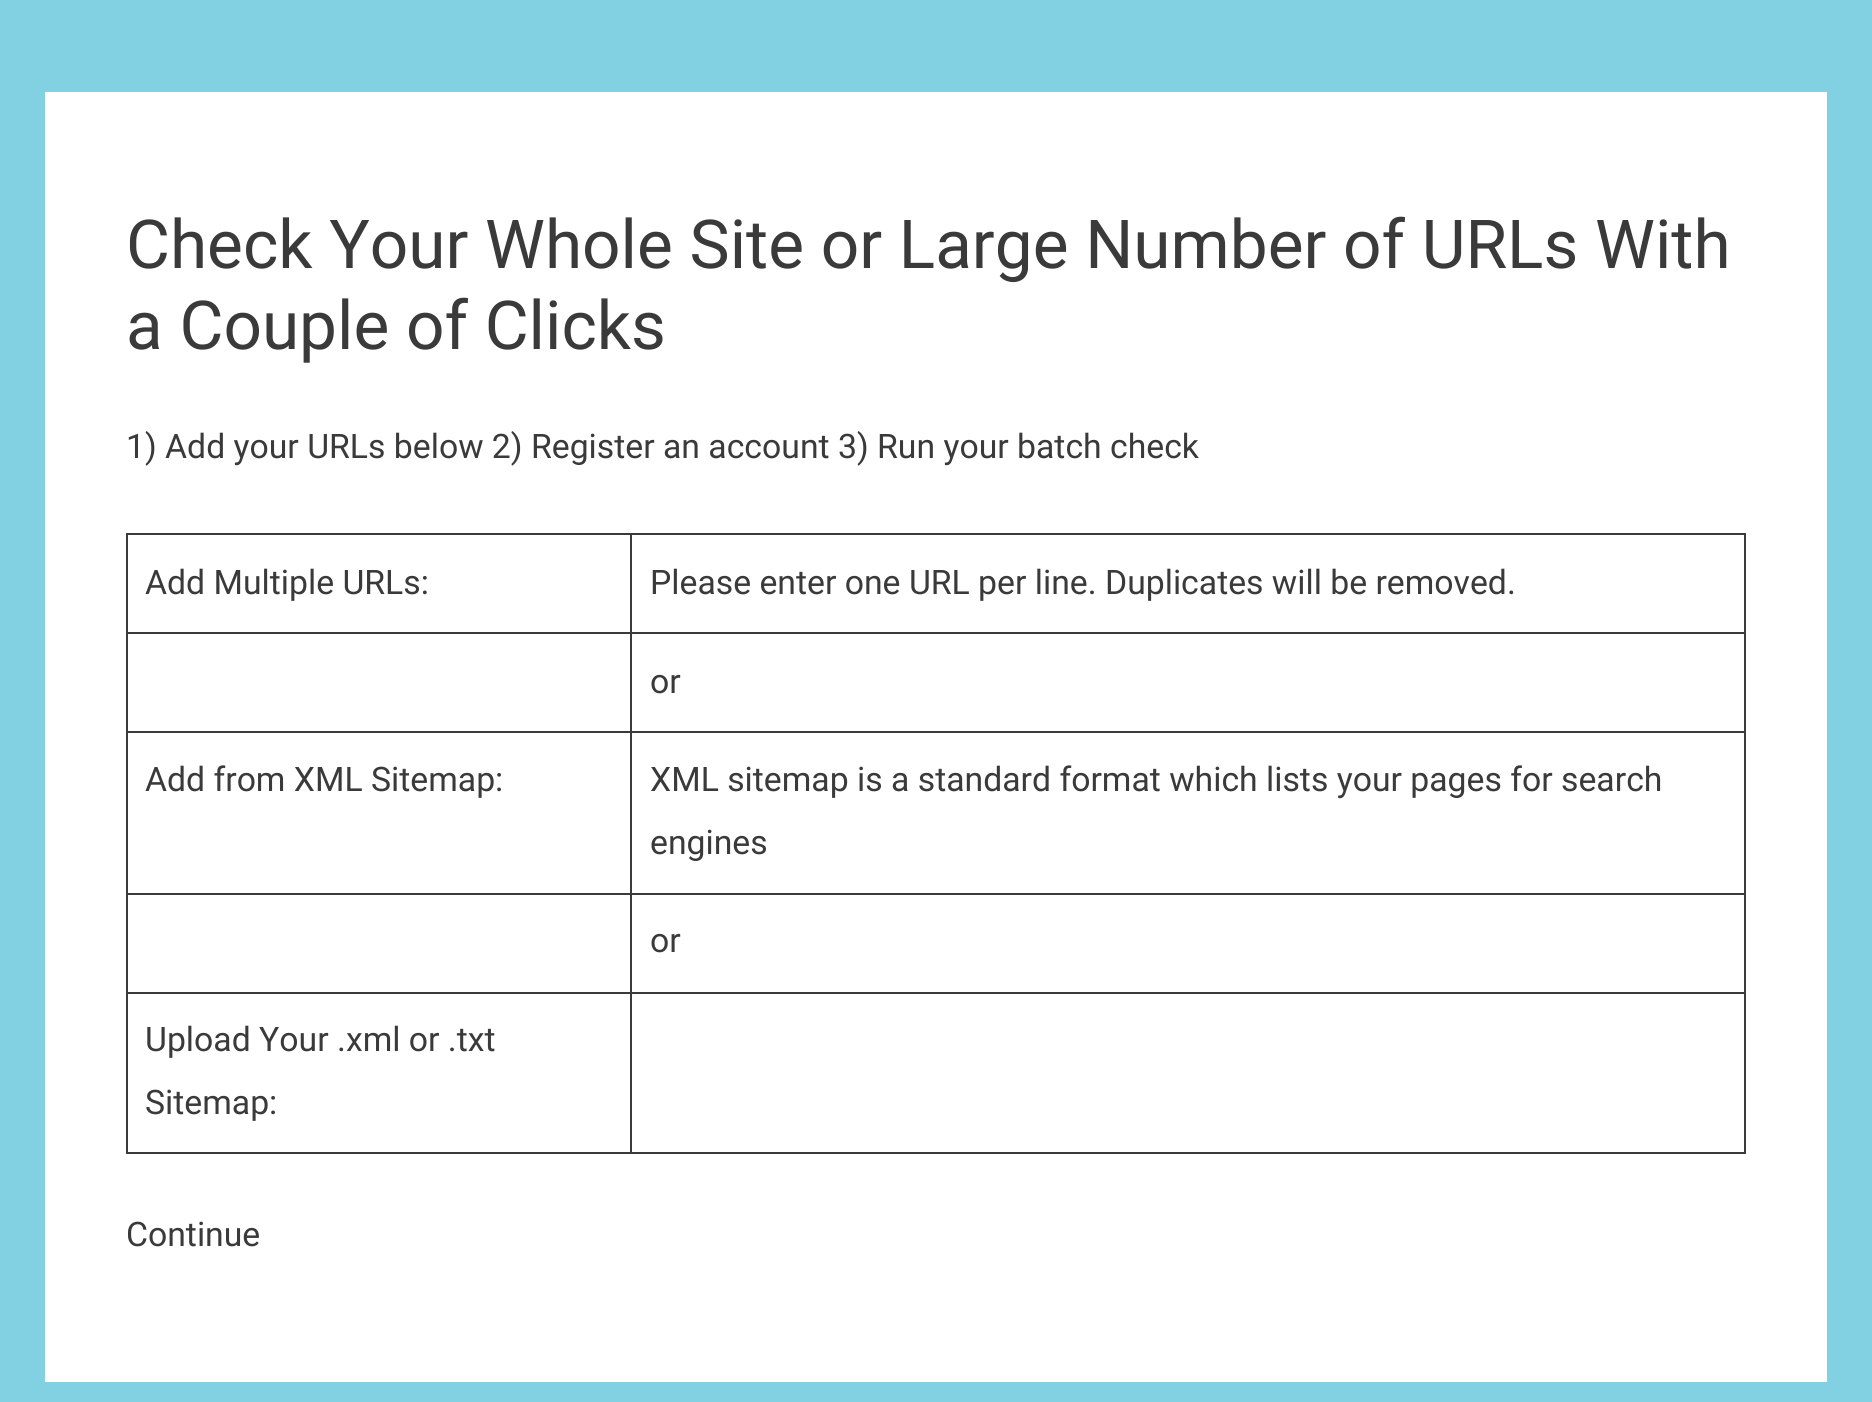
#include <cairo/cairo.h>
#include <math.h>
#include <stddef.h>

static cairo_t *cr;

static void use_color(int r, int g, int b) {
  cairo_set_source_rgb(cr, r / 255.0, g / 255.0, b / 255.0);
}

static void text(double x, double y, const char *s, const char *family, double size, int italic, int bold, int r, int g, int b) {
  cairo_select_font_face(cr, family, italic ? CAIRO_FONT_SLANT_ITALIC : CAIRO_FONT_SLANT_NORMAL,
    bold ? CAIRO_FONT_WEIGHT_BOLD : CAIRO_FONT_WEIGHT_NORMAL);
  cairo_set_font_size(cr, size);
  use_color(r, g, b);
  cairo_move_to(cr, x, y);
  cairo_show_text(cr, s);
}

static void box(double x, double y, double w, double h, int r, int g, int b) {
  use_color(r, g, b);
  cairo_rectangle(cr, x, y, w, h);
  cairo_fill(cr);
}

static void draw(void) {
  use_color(129, 209, 227);
  cairo_paint(cr);
  box(45, 92, 1782, 1290, 255, 255, 255);
  box(630, 533, 1116, 2, 58, 58, 58);
  box(630, 632, 1116, 2, 58, 58, 58);
  box(630, 731, 1116, 2, 58, 58, 58);
  box(630, 893, 1116, 2, 58, 58, 58);
  box(630, 992, 1116, 2, 58, 58, 58);
  box(1744, 992, 2, 162, 58, 58, 58);
  box(630, 1152, 1116, 2, 58, 58, 58);
  box(630, 992, 2, 162, 58, 58, 58);
  box(126, 992, 506, 2, 58, 58, 58);
  box(630, 893, 2, 102, 58, 58, 58);
  box(126, 893, 506, 2, 58, 58, 58);
  box(630, 731, 2, 165, 58, 58, 58);
  box(126, 731, 506, 2, 58, 58, 58);
  box(630, 632, 2, 102, 58, 58, 58);
  box(126, 632, 506, 2, 58, 58, 58);
  box(630, 533, 2, 102, 58, 58, 58);
  box(126, 533, 506, 2, 58, 58, 58);
  box(126, 1152, 506, 2, 58, 58, 58);
  box(126, 992, 2, 162, 58, 58, 58);
  box(126, 893, 2, 102, 58, 58, 58);
  box(126, 731, 2, 165, 58, 58, 58);
  box(126, 632, 2, 102, 58, 58, 58);
  box(126, 533, 2, 102, 58, 58, 58);
  box(1744, 893, 2, 102, 58, 58, 58);
  box(1744, 731, 2, 165, 58, 58, 58);
  box(1744, 632, 2, 102, 58, 58, 58);
  box(1744, 533, 2, 102, 58, 58, 58);
  text(126, 268, "Check Your Whole Site or Large Number of URLs With", "Roboto", 67.5, 0, 0, 58, 58, 58);
  text(126, 349, "a Couple of Clicks", "Roboto", 67.5, 0, 0, 58, 58, 58);
  text(126, 458, "1) Add your URLs below 2) Register an account 3) Run your batch check", "Roboto", 33.75, 0, 0, 58, 58, 58);
  text(145, 594, "Add Multiple URLs:", "Roboto", 33.75, 0, 0, 58, 58, 58);
  text(650, 594, "Please enter one URL per line. Duplicates will be removed.", "Roboto", 33.75, 0, 0, 58, 58, 58);
  text(650, 693, "or", "Roboto", 33.75, 0, 0, 58, 58, 58);
  text(145, 791, "Add from XML Sitemap:", "Roboto", 33.75, 0, 0, 58, 58, 58);
  text(650, 791, "XML sitemap is a standard format which lists your pages for search", "Roboto", 33.75, 0, 0, 58, 58, 58);
  text(650, 854, "engines", "Roboto", 33.75, 0, 0, 58, 58, 58);
  text(650, 952, "or", "Roboto", 33.75, 0, 0, 58, 58, 58);
  text(145, 1051, "Upload Your .xml or .txt", "Roboto", 33.75, 0, 0, 58, 58, 58);
  text(145, 1114, "Sitemap:", "Roboto", 33.75, 0, 0, 58, 58, 58);
  text(126, 1246, "Continue", "Roboto", 33.75, 0, 0, 58, 58, 58);
}

int main(void) {
  cairo_surface_t *surface = cairo_image_surface_create(CAIRO_FORMAT_RGB24, 1872, 1402);
  cr = cairo_create(surface);
  cairo_font_options_t *options = cairo_font_options_create();
  cairo_font_options_set_hint_metrics(options, CAIRO_HINT_METRICS_OFF);
  cairo_font_options_set_hint_style(options, CAIRO_HINT_STYLE_NONE);
  cairo_set_font_options(cr, options);
  cairo_set_miter_limit(cr, 4);
  draw();
  cairo_surface_write_to_png(surface, "out.png");
  cairo_font_options_destroy(options);
  cairo_destroy(cr);
  cairo_surface_destroy(surface);
  return 0;
}
